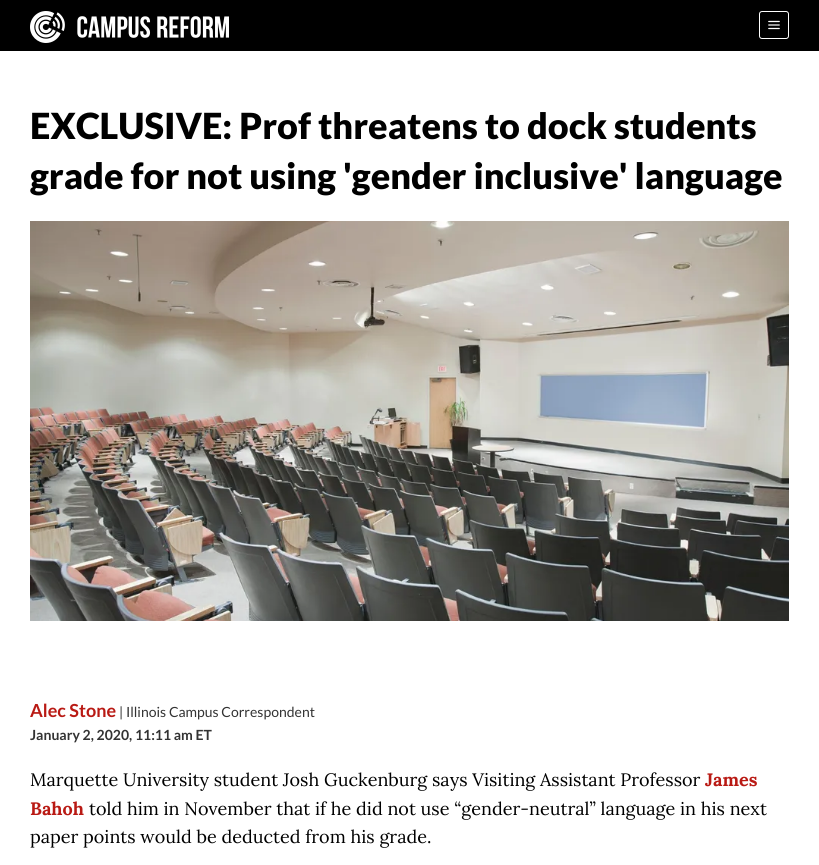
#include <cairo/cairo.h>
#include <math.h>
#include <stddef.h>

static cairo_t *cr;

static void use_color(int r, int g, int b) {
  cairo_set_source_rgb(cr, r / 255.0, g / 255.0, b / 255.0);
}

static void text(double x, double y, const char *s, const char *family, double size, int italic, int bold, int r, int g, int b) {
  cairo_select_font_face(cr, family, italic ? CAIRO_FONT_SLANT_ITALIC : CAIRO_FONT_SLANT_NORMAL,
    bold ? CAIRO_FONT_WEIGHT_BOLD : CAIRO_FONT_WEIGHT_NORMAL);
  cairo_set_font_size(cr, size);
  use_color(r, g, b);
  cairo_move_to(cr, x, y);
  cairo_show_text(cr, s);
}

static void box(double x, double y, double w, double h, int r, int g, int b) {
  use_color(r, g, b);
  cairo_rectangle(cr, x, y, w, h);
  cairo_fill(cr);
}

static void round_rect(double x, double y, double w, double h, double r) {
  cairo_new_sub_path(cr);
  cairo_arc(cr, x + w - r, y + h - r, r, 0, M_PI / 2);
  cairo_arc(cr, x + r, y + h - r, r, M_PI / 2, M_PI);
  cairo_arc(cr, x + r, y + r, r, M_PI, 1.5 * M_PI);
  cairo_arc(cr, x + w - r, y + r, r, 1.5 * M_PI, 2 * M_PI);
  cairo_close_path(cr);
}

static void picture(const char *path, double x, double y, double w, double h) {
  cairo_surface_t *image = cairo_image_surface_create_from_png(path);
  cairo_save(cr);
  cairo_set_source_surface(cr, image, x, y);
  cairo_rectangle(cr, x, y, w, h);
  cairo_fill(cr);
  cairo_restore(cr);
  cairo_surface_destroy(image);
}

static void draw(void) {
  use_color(255, 255, 255);
  cairo_paint(cr);
  box(0, 0, 819, 51, 0, 0, 0);
  picture("img_01.png", 30, 11, 199, 32);
  round_rect(759.5, 11.5, 29, 27, 2.5);
  use_color(255, 255, 255);
  cairo_set_line_width(cr, 1);
  cairo_stroke(cr);
  picture("img_02.png", 768, 20, 12, 10);
  picture("img_03.png", 30, 221, 759, 400);
  text(30, 139, "EXCLUSIVE: Prof threatens to dock students", "Lato Black", 36, 0, 0, 0, 0, 0);
  text(30, 189, "grade for not using 'gender inclusive' language", "Lato Black", 36, 0, 0, 0, 0, 0);
  text(30, 717, "Alec Stone", "Lato", 18, 0, 1, 185, 26, 20);
  text(119, 717, "| Illinois Campus Correspondent", "Lato", 14, 0, 0, 51, 51, 51);
  text(30, 740, "January 2, 2020, 11:11 am ET", "Lato", 14, 0, 1, 51, 51, 51);
  text(30, 786, "Marquette University student Josh Guckenburg says Visiting Assistant Professor", "Lora", 18, 0, 0, 0, 0, 0);
  text(705, 786, "James", "Lora", 18, 0, 1, 185, 26, 20);
  text(30, 815, "Bahoh", "Lora", 18, 0, 1, 185, 26, 20);
  text(89, 815, "told him in November that if he did not use “gender-neutral” language in his next", "Lora", 18, 0, 0, 0, 0, 0);
  text(30, 843, "paper points would be deducted from his grade.", "Lora", 18, 0, 0, 0, 0, 0);
}

int main(void) {
  cairo_surface_t *surface = cairo_image_surface_create(CAIRO_FORMAT_RGB24, 819, 865);
  cr = cairo_create(surface);
  cairo_font_options_t *options = cairo_font_options_create();
  cairo_font_options_set_hint_metrics(options, CAIRO_HINT_METRICS_OFF);
  cairo_font_options_set_hint_style(options, CAIRO_HINT_STYLE_NONE);
  cairo_set_font_options(cr, options);
  cairo_set_miter_limit(cr, 4);
  draw();
  cairo_surface_write_to_png(surface, "out.png");
  cairo_font_options_destroy(options);
  cairo_destroy(cr);
  cairo_surface_destroy(surface);
  return 0;
}
